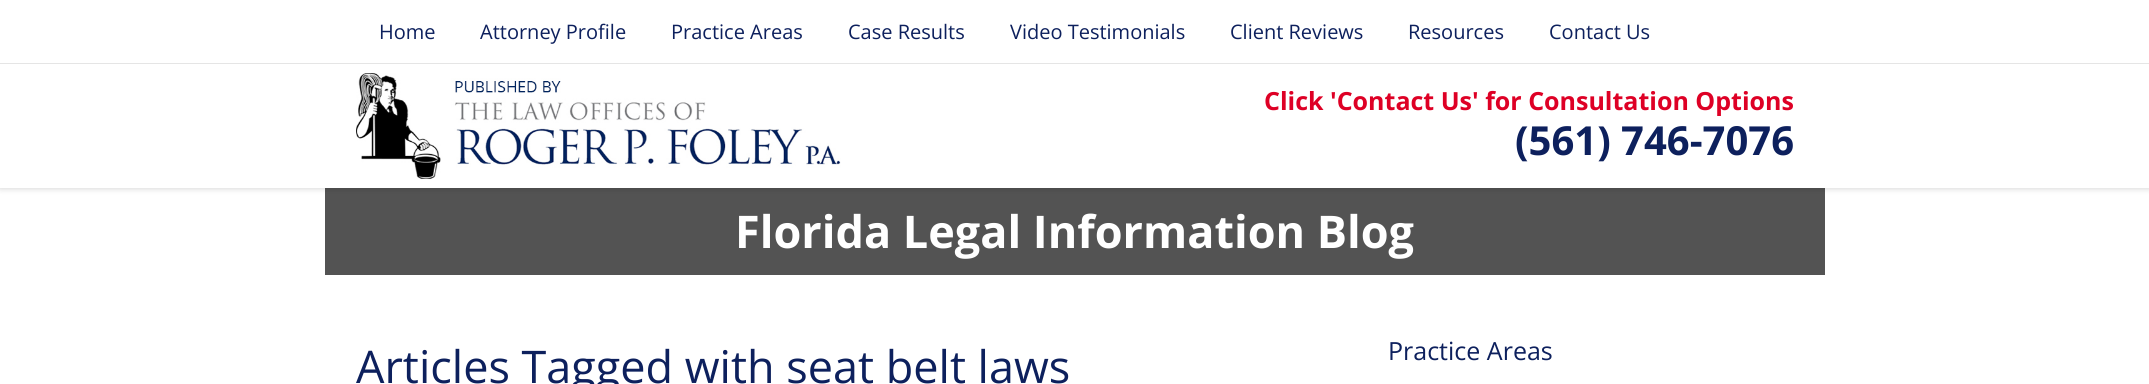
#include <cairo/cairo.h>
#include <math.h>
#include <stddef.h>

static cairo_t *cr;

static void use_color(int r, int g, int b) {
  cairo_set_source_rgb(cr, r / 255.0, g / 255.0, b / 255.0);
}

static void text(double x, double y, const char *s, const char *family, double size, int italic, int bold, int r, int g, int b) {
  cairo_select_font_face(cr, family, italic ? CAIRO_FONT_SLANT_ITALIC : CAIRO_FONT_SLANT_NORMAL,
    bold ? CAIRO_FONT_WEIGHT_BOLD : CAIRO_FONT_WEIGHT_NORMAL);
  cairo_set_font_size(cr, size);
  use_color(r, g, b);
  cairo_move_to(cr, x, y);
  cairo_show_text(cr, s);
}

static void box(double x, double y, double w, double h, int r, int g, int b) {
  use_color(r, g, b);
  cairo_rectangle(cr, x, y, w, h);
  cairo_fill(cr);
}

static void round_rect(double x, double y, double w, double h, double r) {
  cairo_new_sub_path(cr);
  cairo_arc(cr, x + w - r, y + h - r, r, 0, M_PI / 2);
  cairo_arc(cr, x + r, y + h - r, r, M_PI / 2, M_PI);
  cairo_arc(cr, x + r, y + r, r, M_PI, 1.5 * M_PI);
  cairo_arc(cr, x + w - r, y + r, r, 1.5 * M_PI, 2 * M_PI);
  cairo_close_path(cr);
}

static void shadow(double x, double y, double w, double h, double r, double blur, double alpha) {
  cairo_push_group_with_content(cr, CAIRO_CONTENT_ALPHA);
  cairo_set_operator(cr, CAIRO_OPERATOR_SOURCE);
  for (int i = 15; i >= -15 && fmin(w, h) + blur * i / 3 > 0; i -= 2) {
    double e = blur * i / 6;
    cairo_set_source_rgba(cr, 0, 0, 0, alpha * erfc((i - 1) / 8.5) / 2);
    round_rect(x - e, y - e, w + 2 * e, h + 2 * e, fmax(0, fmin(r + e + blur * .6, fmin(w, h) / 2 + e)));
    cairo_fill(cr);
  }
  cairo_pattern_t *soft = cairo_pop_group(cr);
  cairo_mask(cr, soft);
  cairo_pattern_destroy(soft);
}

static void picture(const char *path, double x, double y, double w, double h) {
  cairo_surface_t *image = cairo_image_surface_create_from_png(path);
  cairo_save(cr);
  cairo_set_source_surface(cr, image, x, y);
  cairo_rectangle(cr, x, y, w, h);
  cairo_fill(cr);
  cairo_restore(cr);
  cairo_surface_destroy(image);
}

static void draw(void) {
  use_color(255, 255, 255);
  cairo_paint(cr);
  box(325, 188, 1500, 87, 83, 83, 83);
  use_color(0, 0, 0);
  shadow(0, 1, 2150, 188, 0, 3, 0.15);
  box(0, 0, 2149, 188, 255, 255, 255);
  box(0, 63, 2149, 1, 229, 229, 229);
  picture("img_01.png", 356, 73, 485, 106);
  text(379, 39, "Home", "Open Sans", 20, 0, 0, 13, 32, 93);
  text(480, 39, "Attorney Profile", "Open Sans", 20, 0, 0, 13, 32, 93);
  text(671, 39, "Practice Areas", "Open Sans", 20, 0, 0, 13, 32, 93);
  text(848, 39, "Case Results", "Open Sans", 20, 0, 0, 13, 32, 93);
  text(1010, 39, "Video Testimonials", "Open Sans", 20, 0, 0, 13, 32, 93);
  text(1230, 39, "Client Reviews", "Open Sans", 20, 0, 0, 13, 32, 93);
  text(1408, 39, "Resources", "Open Sans", 20, 0, 0, 13, 32, 93);
  text(1549, 39, "Contact Us", "Open Sans", 20, 0, 0, 13, 32, 93);
  text(1264, 110, "Click 'Contact Us' for Consultation Options", "Open Sans", 25, 0, 1, 222, 0, 37);
  text(1515, 155, "(561) 746-7076", "Open Sans", 40, 0, 1, 13, 32, 93);
  text(735, 248, "Florida Legal Information Blog", "Open Sans", 45, 0, 1, 255, 255, 255);
  text(356, 383, "Articles Tagged with seat belt laws", "Open Sans", 45, 0, 0, 13, 32, 93);
  text(1388, 360, "Practice Areas", "Open Sans", 25, 0, 0, 13, 32, 93);
}

int main(void) {
  cairo_surface_t *surface = cairo_image_surface_create(CAIRO_FORMAT_RGB24, 2149, 384);
  cr = cairo_create(surface);
  cairo_font_options_t *options = cairo_font_options_create();
  cairo_font_options_set_hint_metrics(options, CAIRO_HINT_METRICS_OFF);
  cairo_font_options_set_hint_style(options, CAIRO_HINT_STYLE_NONE);
  cairo_set_font_options(cr, options);
  cairo_set_miter_limit(cr, 4);
  draw();
  cairo_surface_write_to_png(surface, "out.png");
  cairo_font_options_destroy(options);
  cairo_destroy(cr);
  cairo_surface_destroy(surface);
  return 0;
}
